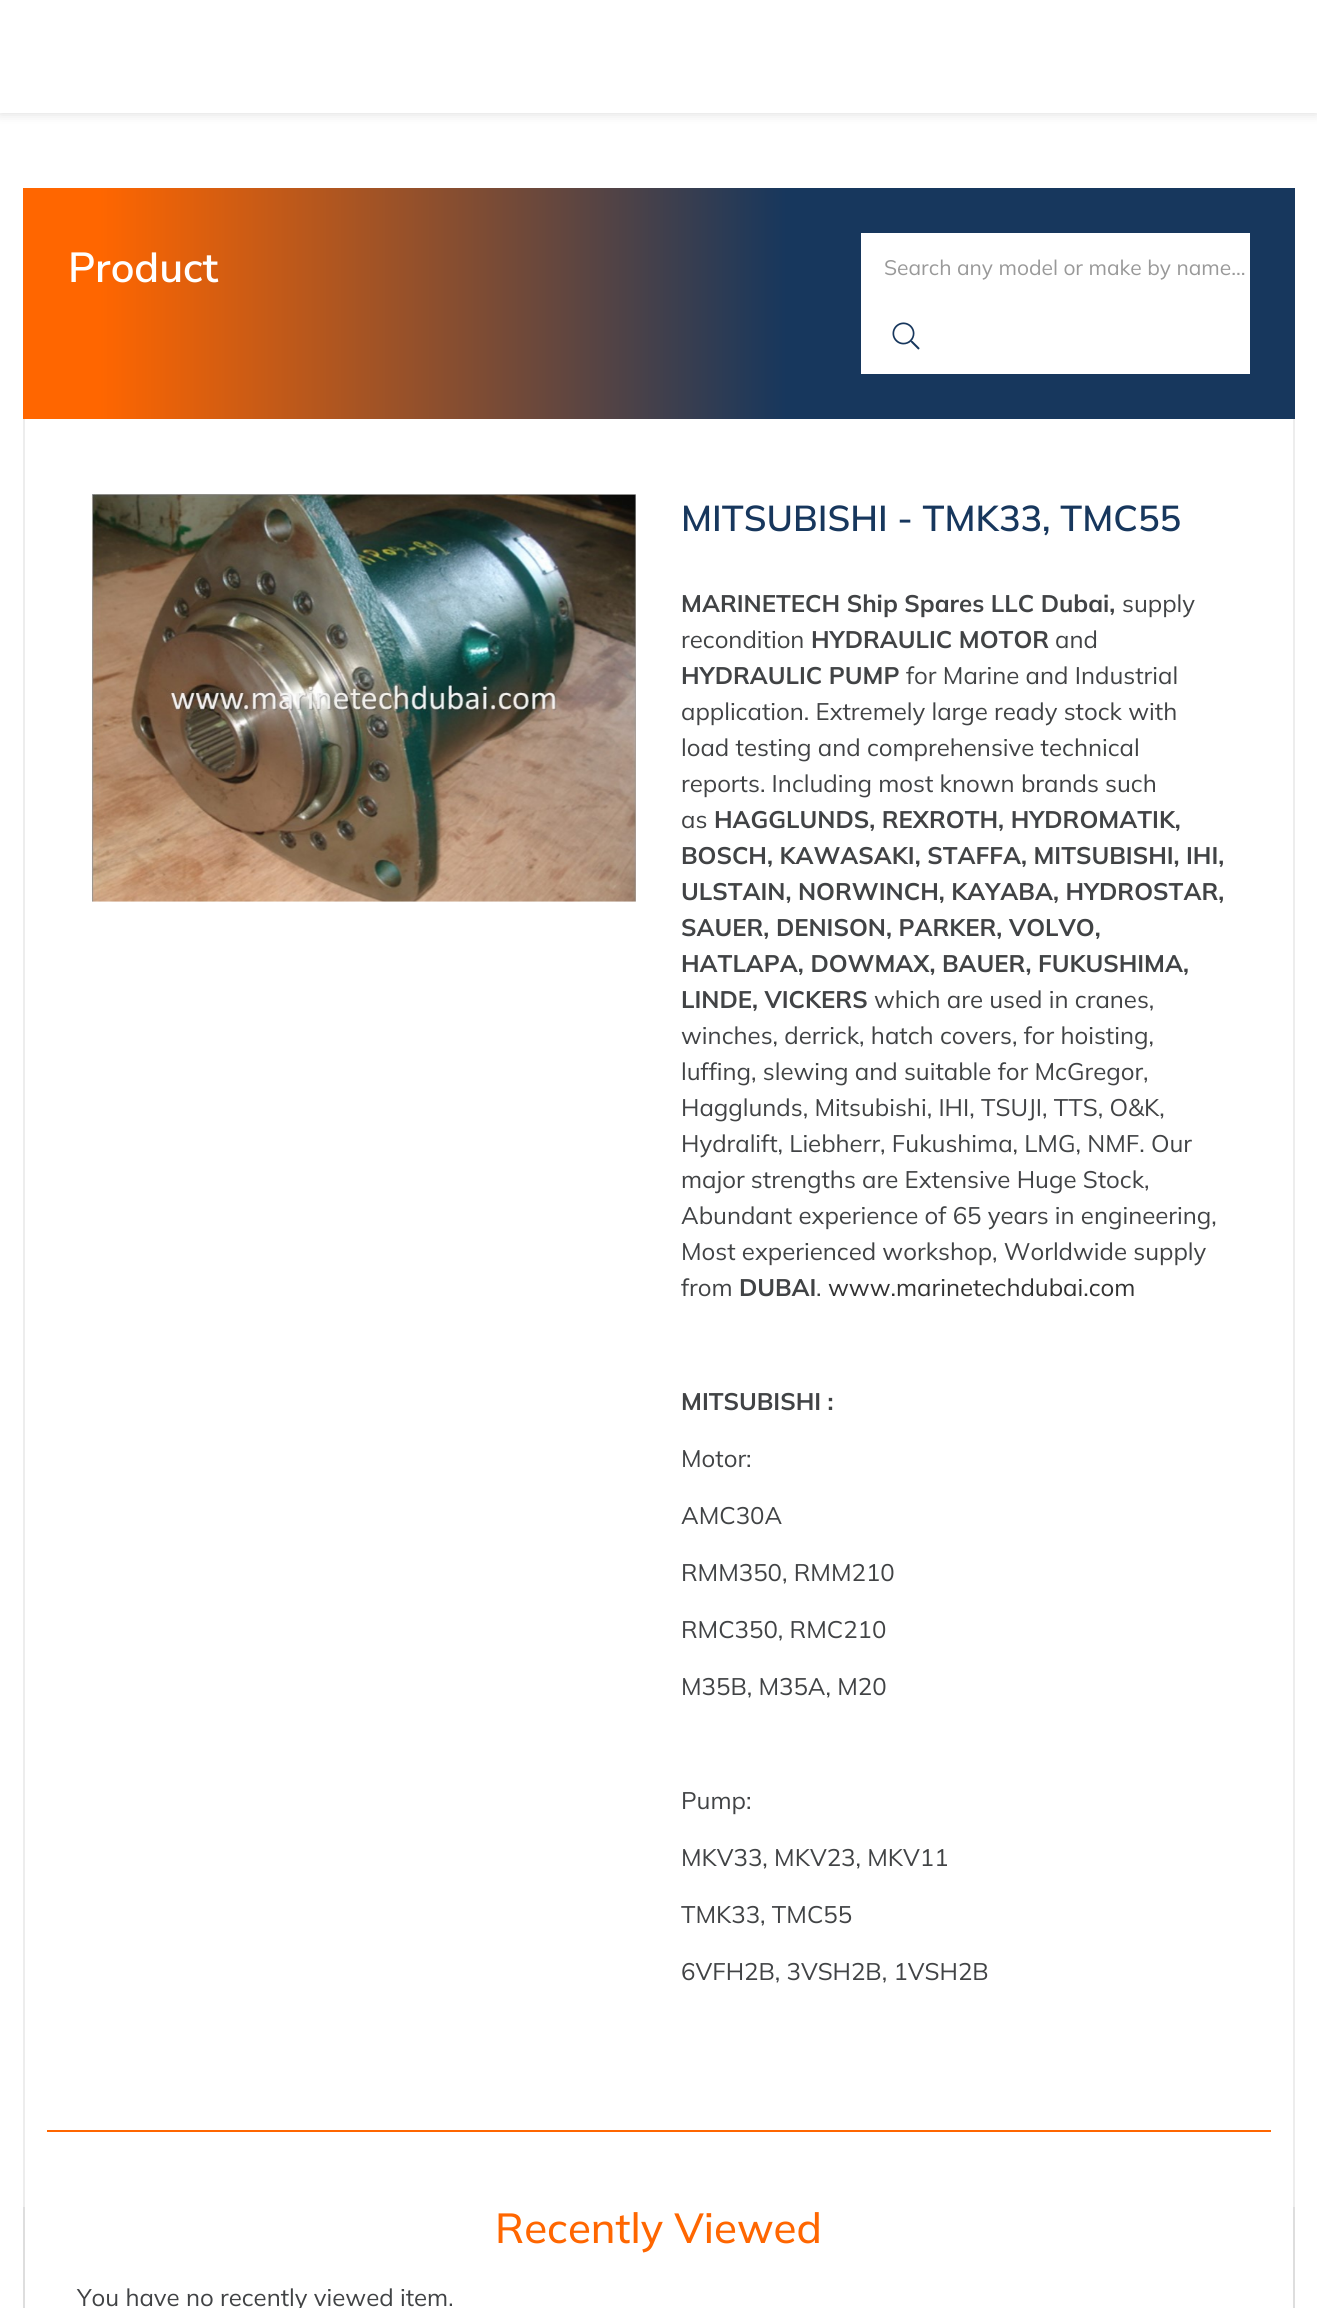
#include <cairo/cairo.h>
#include <math.h>
#include <stddef.h>

static cairo_t *cr;

static void use_color(int r, int g, int b) {
  cairo_set_source_rgb(cr, r / 255.0, g / 255.0, b / 255.0);
}

static void text(double x, double y, const char *s, const char *family, double size, int italic, int bold, int r, int g, int b) {
  cairo_select_font_face(cr, family, italic ? CAIRO_FONT_SLANT_ITALIC : CAIRO_FONT_SLANT_NORMAL,
    bold ? CAIRO_FONT_WEIGHT_BOLD : CAIRO_FONT_WEIGHT_NORMAL);
  cairo_set_font_size(cr, size);
  use_color(r, g, b);
  cairo_move_to(cr, x, y);
  cairo_show_text(cr, s);
}

static void box(double x, double y, double w, double h, int r, int g, int b) {
  use_color(r, g, b);
  cairo_rectangle(cr, x, y, w, h);
  cairo_fill(cr);
}

static void round_rect(double x, double y, double w, double h, double r) {
  cairo_new_sub_path(cr);
  cairo_arc(cr, x + w - r, y + h - r, r, 0, M_PI / 2);
  cairo_arc(cr, x + r, y + h - r, r, M_PI / 2, M_PI);
  cairo_arc(cr, x + r, y + r, r, M_PI, 1.5 * M_PI);
  cairo_arc(cr, x + w - r, y + r, r, 1.5 * M_PI, 2 * M_PI);
  cairo_close_path(cr);
}

static void shadow(double x, double y, double w, double h, double r, double blur, double alpha) {
  cairo_push_group_with_content(cr, CAIRO_CONTENT_ALPHA);
  cairo_set_operator(cr, CAIRO_OPERATOR_SOURCE);
  for (int i = 15; i >= -15 && fmin(w, h) + blur * i / 3 > 0; i -= 2) {
    double e = blur * i / 6;
    cairo_set_source_rgba(cr, 0, 0, 0, alpha * erfc((i - 1) / 8.5) / 2);
    round_rect(x - e, y - e, w + 2 * e, h + 2 * e, fmax(0, fmin(r + e + blur * .6, fmin(w, h) / 2 + e)));
    cairo_fill(cr);
  }
  cairo_pattern_t *soft = cairo_pop_group(cr);
  cairo_mask(cr, soft);
  cairo_pattern_destroy(soft);
}

static void picture(const char *path, double x, double y, double w, double h) {
  cairo_surface_t *image = cairo_image_surface_create_from_png(path);
  cairo_save(cr);
  cairo_set_source_surface(cr, image, x, y);
  cairo_rectangle(cr, x, y, w, h);
  cairo_fill(cr);
  cairo_restore(cr);
  cairo_surface_destroy(image);
}

static void draw(void) {
  cairo_pattern_t *gradient;
  use_color(255, 255, 255);
  cairo_paint(cr);
  use_color(0, 0, 0);
  shadow(0, 0, 1317, 113, 0, 6, 0.15);
  box(0, 0, 1317, 113, 255, 255, 255);
  gradient = cairo_pattern_create_linear(23, 303, 1295, 303);
  cairo_pattern_add_color_stop_rgba(gradient, 0.06, 1, 0.4, 0, 1);
  cairo_pattern_add_color_stop_rgba(gradient, 0.6, 0.09, 0.216, 0.365, 1);
  cairo_set_source(cr, gradient);
  cairo_pattern_destroy(gradient);
  cairo_rectangle(cr, 23, 188, 1272, 231);
  cairo_fill(cr);
  box(861, 233, 389, 141, 255, 255, 255);
  picture("img_01.png", 892, 322, 28, 28);
  box(1293, 419, 2, 1788, 237, 237, 237);
  box(23, 419, 2, 1788, 237, 237, 237);
  box(47, 2130, 1224, 2, 255, 102, 0);
  picture("img_02.png", 91, 494, 545, 408);
  box(1293, 2207, 2, 101, 222, 222, 222);
  box(23, 2207, 2, 101, 222, 222, 222);
  text(68, 282, "Product", "Nunito Sans SemiBold", 42, 0, 0, 255, 255, 255);
  text(884, 275, "Search any model or make by name...", "Mulish", 21, 0, 0, 153, 153, 153);
  text(681, 531, "MITSUBISHI - TMK33, TMC55", "Mulish SemiBold", 36, 0, 0, 23, 55, 93);
  text(681, 612, "MARINETECH Ship Spares LLC Dubai,", "Mulish", 24, 0, 1, 65, 67, 69);
  text(1122, 612, "supply", "Mulish", 24, 0, 0, 65, 67, 69);
  text(681, 648, "recondition", "Mulish", 24, 0, 0, 65, 67, 69);
  text(811, 648, "HYDRAULIC MOTOR", "Mulish", 24, 0, 1, 65, 67, 69);
  text(1055, 648, "and", "Mulish", 24, 0, 0, 65, 67, 69);
  text(681, 684, "HYDRAULIC PUMP", "Mulish", 24, 0, 1, 65, 67, 69);
  text(906, 684, "for Marine and Industrial", "Mulish", 24, 0, 0, 65, 67, 69);
  text(681, 720, "application. Extremely large ready stock with", "Mulish", 24, 0, 0, 65, 67, 69);
  text(681, 756, "load testing and comprehensive technical", "Mulish", 24, 0, 0, 65, 67, 69);
  text(681, 792, "reports. Including most known brands such", "Mulish", 24, 0, 0, 65, 67, 69);
  text(681, 828, "as", "Mulish", 24, 0, 0, 65, 67, 69);
  text(714, 828, "HAGGLUNDS, REXROTH, HYDROMATIK,", "Mulish", 24, 0, 1, 65, 67, 69);
  text(681, 864, "BOSCH, KAWASAKI, STAFFA, MITSUBISHI, IHI,", "Mulish", 24, 0, 1, 65, 67, 69);
  text(681, 900, "ULSTAIN, NORWINCH, KAYABA, HYDROSTAR,", "Mulish", 24, 0, 1, 65, 67, 69);
  text(681, 936, "SAUER, DENISON, PARKER, VOLVO,", "Mulish", 24, 0, 1, 65, 67, 69);
  text(681, 972, "HATLAPA, DOWMAX, BAUER, FUKUSHIMA,", "Mulish", 24, 0, 1, 65, 67, 69);
  text(681, 1008, "LINDE, VICKERS", "Mulish", 24, 0, 1, 65, 67, 69);
  text(874, 1008, "which are used in cranes,", "Mulish", 24, 0, 0, 65, 67, 69);
  text(681, 1044, "winches, derrick, hatch covers, for hoisting,", "Mulish", 24, 0, 0, 65, 67, 69);
  text(681, 1080, "luffing, slewing and suitable for McGregor,", "Mulish", 24, 0, 0, 65, 67, 69);
  text(681, 1116, "Hagglunds, Mitsubishi, IHI, TSUJI, TTS, O&K,", "Mulish", 24, 0, 0, 65, 67, 69);
  text(681, 1152, "Hydralift, Liebherr, Fukushima, LMG, NMF. Our", "Mulish", 24, 0, 0, 65, 67, 69);
  text(681, 1188, "major strengths are Extensive Huge Stock,", "Mulish", 24, 0, 0, 65, 67, 69);
  text(681, 1224, "Abundant experience of 65 years in engineering,", "Mulish", 24, 0, 0, 65, 67, 69);
  text(681, 1260, "Most experienced workshop, Worldwide supply", "Mulish", 24, 0, 0, 65, 67, 69);
  text(681, 1296, "from", "Mulish", 24, 0, 0, 65, 67, 69);
  text(739, 1296, "DUBAI", "Mulish", 24, 0, 1, 65, 67, 69);
  text(816, 1296, ".", "Mulish", 24, 0, 0, 65, 67, 69);
  text(828, 1296, "www.marinetechdubai.com", "Mulish", 24, 0, 0, 50, 50, 50);
  text(681, 1410, "MITSUBISHI :", "Mulish", 24, 0, 1, 65, 67, 69);
  text(681, 1467, "Motor:", "Mulish", 24, 0, 0, 65, 67, 69);
  text(681, 1524, "AMC30A", "Mulish", 24, 0, 0, 65, 67, 69);
  text(681, 1581, "RMM350, RMM210", "Mulish", 24, 0, 0, 65, 67, 69);
  text(681, 1638, "RMC350, RMC210", "Mulish", 24, 0, 0, 65, 67, 69);
  text(681, 1695, "M35B, M35A, M20", "Mulish", 24, 0, 0, 65, 67, 69);
  text(681, 1809, "Pump:", "Mulish", 24, 0, 0, 65, 67, 69);
  text(681, 1866, "MKV33, MKV23, MKV11", "Mulish", 24, 0, 0, 65, 67, 69);
  text(681, 1923, "TMK33, TMC55", "Mulish", 24, 0, 0, 65, 67, 69);
  text(681, 1980, "6VFH2B, 3VSH2B, 1VSH2B", "Mulish", 24, 0, 0, 65, 67, 69);
  text(495, 2243, "Recently Viewed", "Mulish Medium", 42, 0, 0, 255, 102, 0);
  text(77, 2306, "You have no recently viewed item.", "Mulish", 24, 0, 0, 65, 67, 69);
}

int main(void) {
  cairo_surface_t *surface = cairo_image_surface_create(CAIRO_FORMAT_RGB24, 1317, 2308);
  cr = cairo_create(surface);
  cairo_font_options_t *options = cairo_font_options_create();
  cairo_font_options_set_hint_metrics(options, CAIRO_HINT_METRICS_OFF);
  cairo_font_options_set_hint_style(options, CAIRO_HINT_STYLE_NONE);
  cairo_set_font_options(cr, options);
  cairo_set_miter_limit(cr, 4);
  draw();
  cairo_surface_write_to_png(surface, "out.png");
  cairo_font_options_destroy(options);
  cairo_destroy(cr);
  cairo_surface_destroy(surface);
  return 0;
}
